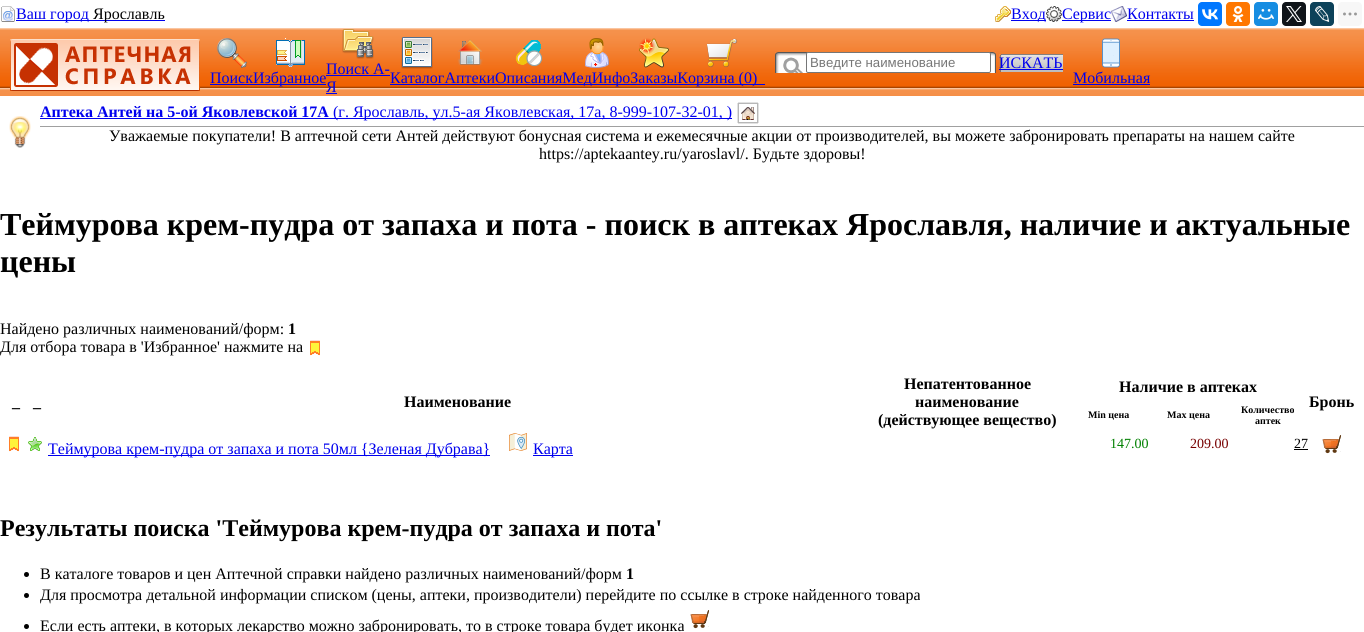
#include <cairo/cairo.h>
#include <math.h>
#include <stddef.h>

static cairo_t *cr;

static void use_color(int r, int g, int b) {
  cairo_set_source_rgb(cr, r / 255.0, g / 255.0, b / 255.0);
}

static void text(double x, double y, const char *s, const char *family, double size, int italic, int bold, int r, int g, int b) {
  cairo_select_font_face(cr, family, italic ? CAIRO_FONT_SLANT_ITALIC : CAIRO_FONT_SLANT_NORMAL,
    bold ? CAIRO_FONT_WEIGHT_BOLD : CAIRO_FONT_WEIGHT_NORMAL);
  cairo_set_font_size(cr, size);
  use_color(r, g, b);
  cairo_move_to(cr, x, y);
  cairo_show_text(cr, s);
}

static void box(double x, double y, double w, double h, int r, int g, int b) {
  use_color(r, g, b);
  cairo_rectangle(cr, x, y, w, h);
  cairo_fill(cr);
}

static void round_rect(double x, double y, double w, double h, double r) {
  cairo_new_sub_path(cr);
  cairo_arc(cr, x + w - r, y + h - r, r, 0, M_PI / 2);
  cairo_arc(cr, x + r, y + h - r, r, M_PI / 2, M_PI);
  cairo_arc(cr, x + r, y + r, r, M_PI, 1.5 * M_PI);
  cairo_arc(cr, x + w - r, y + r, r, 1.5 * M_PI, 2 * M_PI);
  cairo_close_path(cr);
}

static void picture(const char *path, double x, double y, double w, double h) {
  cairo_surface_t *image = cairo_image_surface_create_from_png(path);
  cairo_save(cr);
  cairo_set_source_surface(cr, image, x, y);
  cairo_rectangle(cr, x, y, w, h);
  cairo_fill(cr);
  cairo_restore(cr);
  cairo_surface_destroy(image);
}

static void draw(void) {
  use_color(255, 255, 255);
  cairo_paint(cr);
  picture("img_01.png", 1, 6, 14, 16);
  box(16, 20, 149, 1, 0, 0, 238);
  picture("img_02.png", 995, 6, 16, 16);
  box(1011, 20, 35, 1, 0, 0, 238);
  picture("img_03.png", 1046, 6, 16, 16);
  box(1062, 20, 49, 1, 0, 0, 238);
  picture("img_04.png", 1111, 6, 16, 16);
  box(1127, 20, 67, 1, 0, 0, 238);
  use_color(0, 119, 255);
  round_rect(1198, 2, 24, 24, 4);
  cairo_fill(cr);
  picture("img_05.png", 1202, 9, 16, 11);
  use_color(255, 119, 0);
  round_rect(1226, 2, 24, 24, 4);
  cairo_fill(cr);
  picture("img_06.png", 1232, 6, 12, 16);
  use_color(22, 141, 226);
  round_rect(1254, 2, 24, 24, 4);
  cairo_fill(cr);
  picture("img_07.png", 1258, 9, 16, 11);
  use_color(15, 20, 25);
  round_rect(1282, 2, 24, 24, 4);
  cairo_fill(cr);
  picture("img_08.png", 1286, 6, 16, 16);
  use_color(13, 66, 90);
  round_rect(1310, 2, 24, 24, 4);
  cairo_fill(cr);
  picture("img_09.png", 1315, 6, 15, 16);
  use_color(247, 247, 247);
  round_rect(1338, 2, 24, 24, 4);
  cairo_fill(cr);
  picture("img_10.png", 1343, 12, 14, 4);
  picture("img_11.png", 0, 28, 1364, 68);
  picture("img_12.png", 10, 39, 190, 52);
  picture("img_13.png", 276, 38, 29, 29);
  picture("img_14.png", 342, 29, 32, 30);
  box(326, 75, 64, 1, 0, 0, 238);
  box(326, 93, 11, 1, 0, 0, 238);
  picture("img_15.png", 457, 39, 26, 27);
  picture("img_16.png", 515, 40, 28, 27);
  picture("img_17.png", 585, 38, 24, 30);
  picture("img_18.png", 639, 38, 30, 30);
  picture("img_19.png", 706, 38, 32, 30);
  picture("img_20.png", 775, 52, 5, 21);
  picture("img_21.png", 780, 52, 26, 21);
  picture("img_22.png", 806, 52, 185, 21);
  use_color(255, 255, 255);
  round_rect(806.5, 52.5, 184, 20, 1.5);
  cairo_fill_preserve(cr);
  use_color(118, 118, 118);
  cairo_set_line_width(cr, 1);
  cairo_stroke(cr);
  picture("img_23.png", 991, 52, 5, 21);
  picture("img_24.png", 999, 54, 64, 18);
  box(999, 69, 64, 1, 0, 0, 238);
  picture("img_25.png", 217, 38, 30, 30);
  box(210, 84, 116, 1, 0, 0, 238);
  picture("img_26.png", 401, 37, 32, 32);
  box(390, 84, 375, 1, 0, 0, 238);
  picture("img_27.png", 1102, 38, 18, 30);
  box(1073, 84, 77, 1, 0, 0, 238);
  picture("img_28.png", 9, 116, 22, 32);
  box(40, 118, 692, 1, 0, 0, 238);
  picture("img_29.png", 737, 102, 22, 22);
  box(40, 126, 1324, 1, 160, 160, 160);
  picture("img_30.png", 310, 340, 10, 16);
  picture("img_30.png", 9, 436, 10, 16);
  picture("img_31.png", 28, 437, 14, 14);
  box(48, 455, 442, 1, 0, 0, 238);
  picture("img_32.png", 509, 433, 18, 18);
  box(533, 455, 40, 1, 0, 0, 238);
  box(1294, 449, 14, 1, 0, 0, 0);
  picture("img_33.png", 1322, 435, 20, 19);
  cairo_arc(cr, 26.5, 574.5, 2.5, 0, 2 * M_PI);
  cairo_fill(cr);
  cairo_arc(cr, 26.5, 595.5, 2.5, 0, 2 * M_PI);
  cairo_fill(cr);
  cairo_arc(cr, 26.5, 626.5, 2.5, 0, 2 * M_PI);
  cairo_fill(cr);
  picture("img_33.png", 690, 610, 20, 19);
  text(16, 19, "Ваш город", "Liberation Serif", 16, 0, 0, 0, 0, 238);
  text(93, 19, "Ярославль", "Liberation Serif", 16, 0, 0, 0, 0, 0);
  text(1011, 19, "Вход", "Liberation Serif", 16, 0, 0, 0, 0, 238);
  text(1062, 19, "Сервис", "Liberation Serif", 16, 0, 0, 0, 0, 238);
  text(1127, 19, "Контакты", "Liberation Serif", 16, 0, 0, 0, 0, 238);
  text(326, 74, "Поиск А-", "Liberation Serif", 16, 0, 0, 0, 0, 238);
  text(326, 92, "Я", "Liberation Serif", 16, 0, 0, 0, 0, 238);
  text(810, 67, "Введите наименование", "Liberation Sans", 13.25, 0, 0, 119, 119, 119);
  text(999, 68, "ИСКАТЬ", "Liberation Serif", 16, 0, 0, 0, 0, 238);
  text(210, 83, "ПоискИзбранное", "Liberation Serif", 16, 0, 0, 0, 0, 238);
  text(390, 83, "КаталогАптекиОписанияМедИнфоЗаказыКорзина (0)", "Liberation Serif", 16, 0, 0, 0, 0, 238);
  text(1073, 83, "Мобильная", "Liberation Serif", 16, 0, 0, 0, 0, 238);
  text(40, 117, "Аптека Антей на 5-ой Яковлевской 17А", "Liberation Serif", 16, 0, 1, 0, 0, 238);
  text(333, 117, "(г. Ярославль, ул.5-ая Яковлевская, 17а, 8-999-107-32-01, )", "Liberation Serif", 16, 0, 0, 0, 0, 238);
  text(109, 141, "Уважаемые покупатели! В аптечной сети Антей действуют бонусная система и ежемесячные акции от производителей, вы можете забронировать препараты на нашем сайте", "Liberation Serif", 16, 0, 0, 0, 0, 0);
  text(539, 159, "https://aptekaantey.ru/yaroslavl/. Будьте здоровы!", "Liberation Serif", 16, 0, 0, 0, 0, 0);
  text(0, 235, "Теймурова крем-пудра от запаха и пота - поиск в аптеках Ярославля, наличие и актуальные", "Liberation Serif", 32, 0, 1, 0, 0, 0);
  text(0, 272, "цены", "Liberation Serif", 32, 0, 1, 0, 0, 0);
  text(0, 334, "Найдено различных наименований/форм:", "Liberation Serif", 16, 0, 0, 0, 0, 0);
  text(288, 334, "1", "Liberation Serif", 16, 0, 1, 0, 0, 0);
  text(0, 352, "Для отбора товара в 'Избранное' нажмите на", "Liberation Serif", 16, 0, 0, 0, 0, 0);
  text(904, 389, "Непатентованное", "Liberation Serif", 16, 0, 1, 0, 0, 0);
  text(915, 407, "наименование", "Liberation Serif", 16, 0, 1, 0, 0, 0);
  text(878, 425, "(действующее вещество)", "Liberation Serif", 16, 0, 1, 0, 0, 0);
  text(1119, 392, "Наличие в аптеках", "Liberation Serif", 16, 0, 1, 0, 0, 0);
  text(12, 407, "_", "Liberation Serif", 16, 0, 1, 0, 0, 0);
  text(33, 407, "_", "Liberation Serif", 16, 0, 1, 0, 0, 0);
  text(404, 407, "Наименование", "Liberation Serif", 16, 0, 1, 0, 0, 0);
  text(1309, 407, "Бронь", "Liberation Serif", 16, 0, 1, 0, 0, 0);
  text(1088, 418, "Мin цена", "Liberation Serif", 10, 0, 1, 0, 0, 0);
  text(1167, 418, "Мax цена", "Liberation Serif", 10, 0, 1, 0, 0, 0);
  text(1241, 413, "Количество", "Liberation Serif", 10, 0, 1, 0, 0, 0);
  text(1255, 424, "аптек", "Liberation Serif", 10, 0, 1, 0, 0, 0);
  text(48, 454, "Теймурова крем-пудра от запаха и пота 50мл {Зеленая Дубрава}", "Liberation Serif", 16, 0, 0, 0, 0, 238);
  text(533, 454, "Карта", "Liberation Serif", 16, 0, 0, 0, 0, 238);
  text(1110, 448, "147.00", "Liberation Serif", 14, 0, 0, 0, 128, 0);
  text(1190, 448, "209.00", "Liberation Serif", 14, 0, 0, 119, 0, 0);
  text(1294, 448, "27", "Liberation Serif", 14, 0, 0, 0, 0, 0);
  text(0, 536, "Результаты поиска 'Теймурова крем-пудра от запаха и пота'", "Liberation Serif", 24, 0, 1, 0, 0, 0);
  text(40, 579, "В каталоге товаров и цен Аптечной справки найдено различных наименований/форм", "Liberation Serif", 16, 0, 0, 0, 0, 0);
  text(626, 579, "1", "Liberation Serif", 16, 0, 1, 0, 0, 0);
  text(40, 600, "Для просмотра детальной информации списком (цены, аптеки, производители) перейдите по ссылке в строке найденного товара", "Liberation Serif", 16, 0, 0, 0, 0, 0);
  text(40, 631, "Если есть аптеки, в которых лекарство можно забронировать, то в строке товара будет иконка", "Liberation Serif", 16, 0, 0, 0, 0, 0);
}

int main(void) {
  cairo_surface_t *surface = cairo_image_surface_create(CAIRO_FORMAT_RGB24, 1364, 632);
  cr = cairo_create(surface);
  cairo_font_options_t *options = cairo_font_options_create();
  cairo_font_options_set_hint_metrics(options, CAIRO_HINT_METRICS_OFF);
  cairo_font_options_set_hint_style(options, CAIRO_HINT_STYLE_NONE);
  cairo_set_font_options(cr, options);
  cairo_set_miter_limit(cr, 4);
  draw();
  cairo_surface_write_to_png(surface, "out.png");
  cairo_font_options_destroy(options);
  cairo_destroy(cr);
  cairo_surface_destroy(surface);
  return 0;
}
